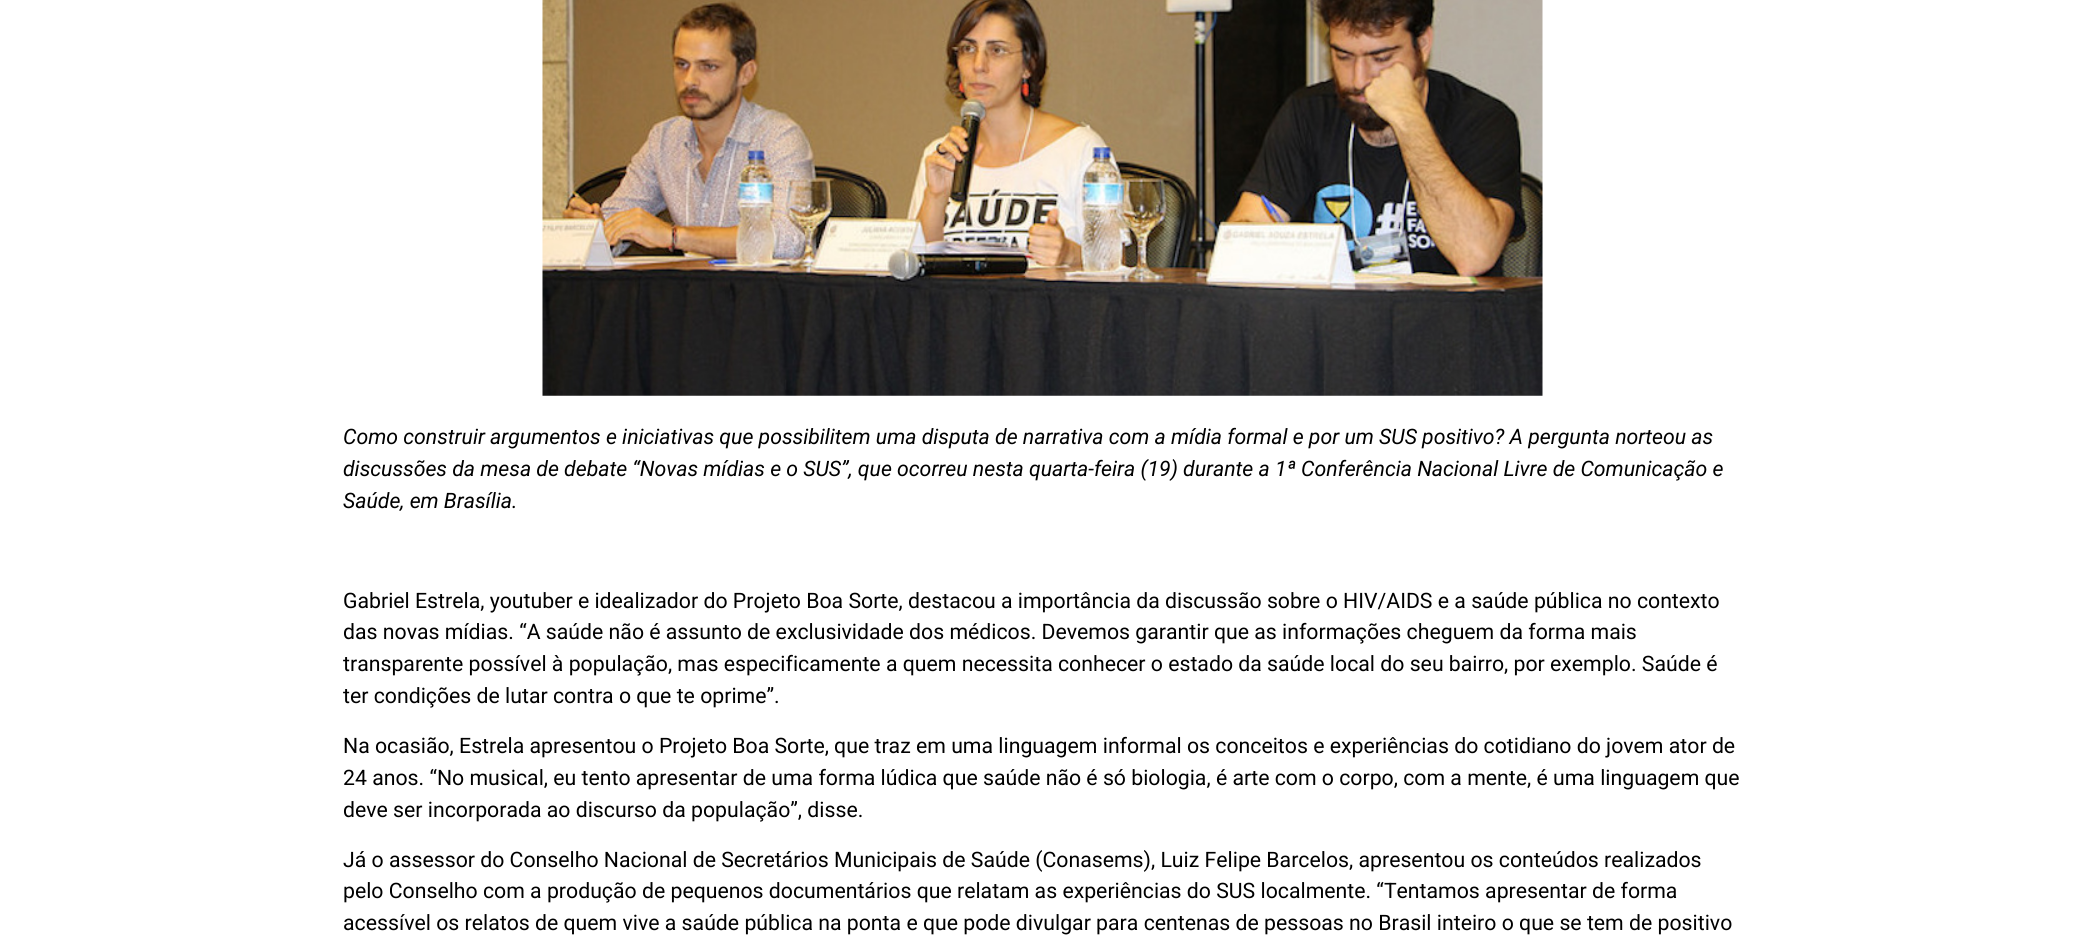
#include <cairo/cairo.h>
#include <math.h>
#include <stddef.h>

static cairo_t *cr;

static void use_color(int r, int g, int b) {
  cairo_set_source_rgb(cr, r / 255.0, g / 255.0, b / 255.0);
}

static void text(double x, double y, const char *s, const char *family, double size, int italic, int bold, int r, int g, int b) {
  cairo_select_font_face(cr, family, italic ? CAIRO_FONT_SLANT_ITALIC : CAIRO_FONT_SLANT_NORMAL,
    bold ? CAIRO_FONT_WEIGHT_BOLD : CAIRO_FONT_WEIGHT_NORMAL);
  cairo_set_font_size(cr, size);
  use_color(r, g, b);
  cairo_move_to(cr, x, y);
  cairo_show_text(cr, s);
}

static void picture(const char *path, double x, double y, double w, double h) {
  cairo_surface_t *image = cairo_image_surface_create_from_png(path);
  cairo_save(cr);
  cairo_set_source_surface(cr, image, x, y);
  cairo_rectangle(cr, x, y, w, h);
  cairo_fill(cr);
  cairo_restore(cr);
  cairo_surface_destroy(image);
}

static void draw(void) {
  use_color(255, 255, 255);
  cairo_paint(cr);
  picture("img_01.png", 542, 0, 1001, 396);
  text(343, 444, "Como construir argumentos e iniciativas que possibilitem uma disputa de narrativa com a mídia formal e por um SUS positivo? A pergunta norteou as", "Roboto", 21.25, 1, 0, 0, 0, 0);
  text(343, 476, "discussões da mesa de debate “Novas mídias e o SUS”, que ocorreu nesta quarta-feira (19) durante a 1ª Conferência Nacional Livre de Comunicação e", "Roboto", 21.25, 1, 0, 0, 0, 0);
  text(343, 508, "Saúde, em Brasília.", "Roboto", 21.25, 1, 0, 0, 0, 0);
  text(343, 608, "Gabriel Estrela, youtuber e idealizador do Projeto Boa Sorte, destacou a importância da discussão sobre o HIV/AIDS e a saúde pública no contexto", "Roboto", 21.25, 0, 0, 0, 0, 0);
  text(343, 639, "das novas mídias. “A saúde não é assunto de exclusividade dos médicos. Devemos garantir que as informações cheguem da forma mais", "Roboto", 21.25, 0, 0, 0, 0, 0);
  text(343, 671, "transparente possível à população, mas especificamente a quem necessita conhecer o estado da saúde local do seu bairro, por exemplo. Saúde é", "Roboto", 21.25, 0, 0, 0, 0, 0);
  text(343, 703, "ter condições de lutar contra o que te oprime”.", "Roboto", 21.25, 0, 0, 0, 0, 0);
  text(343, 753, "Na ocasião, Estrela apresentou o Projeto Boa Sorte, que traz em uma linguagem informal os conceitos e experiências do cotidiano do jovem ator de", "Roboto", 21.25, 0, 0, 0, 0, 0);
  text(343, 785, "24 anos. “No musical, eu tento apresentar de uma forma lúdica que saúde não é só biologia, é arte com o corpo, com a mente, é uma linguagem que", "Roboto", 21.25, 0, 0, 0, 0, 0);
  text(343, 817, "deve ser incorporada ao discurso da população”, disse.", "Roboto", 21.25, 0, 0, 0, 0, 0);
  text(343, 867, "Já o assessor do Conselho Nacional de Secretários Municipais de Saúde (Conasems), Luiz Felipe Barcelos, apresentou os conteúdos realizados", "Roboto", 21.25, 0, 0, 0, 0, 0);
  text(343, 898, "pelo Conselho com a produção de pequenos documentários que relatam as experiências do SUS localmente. “Tentamos apresentar de forma", "Roboto", 21.25, 0, 0, 0, 0, 0);
  text(343, 930, "acessível os relatos de quem vive a saúde pública na ponta e que pode divulgar para centenas de pessoas no Brasil inteiro o que se tem de positivo", "Roboto", 21.25, 0, 0, 0, 0, 0);
}

int main(void) {
  cairo_surface_t *surface = cairo_image_surface_create(CAIRO_FORMAT_RGB24, 2084, 946);
  cr = cairo_create(surface);
  cairo_font_options_t *options = cairo_font_options_create();
  cairo_font_options_set_hint_metrics(options, CAIRO_HINT_METRICS_OFF);
  cairo_font_options_set_hint_style(options, CAIRO_HINT_STYLE_NONE);
  cairo_set_font_options(cr, options);
  cairo_set_miter_limit(cr, 4);
  draw();
  cairo_surface_write_to_png(surface, "out.png");
  cairo_font_options_destroy(options);
  cairo_destroy(cr);
  cairo_surface_destroy(surface);
  return 0;
}
